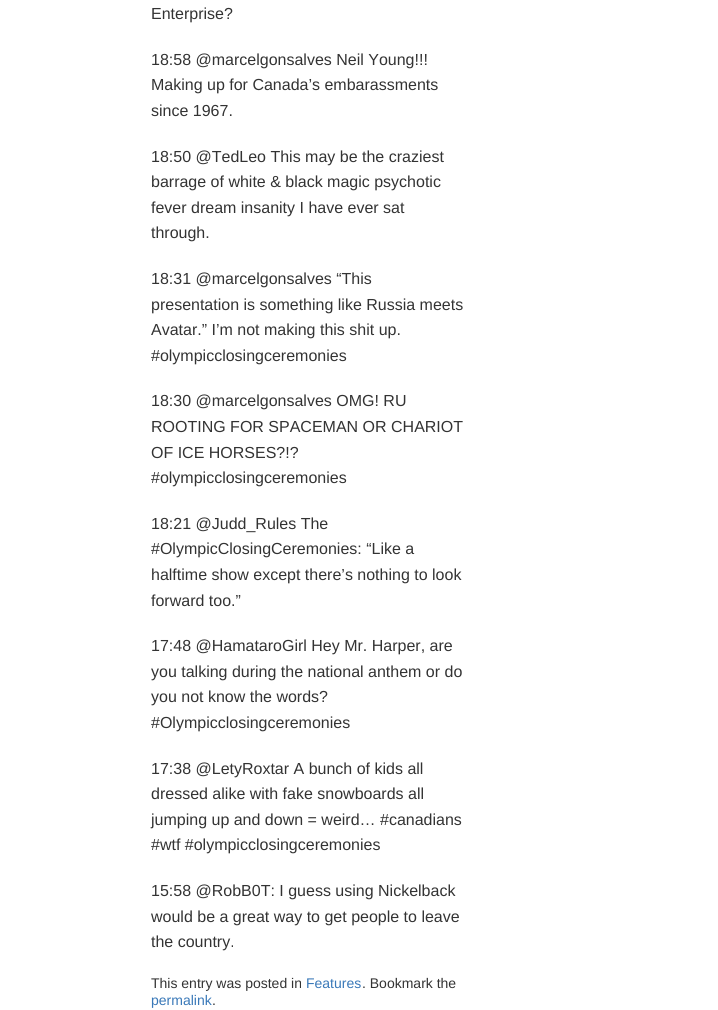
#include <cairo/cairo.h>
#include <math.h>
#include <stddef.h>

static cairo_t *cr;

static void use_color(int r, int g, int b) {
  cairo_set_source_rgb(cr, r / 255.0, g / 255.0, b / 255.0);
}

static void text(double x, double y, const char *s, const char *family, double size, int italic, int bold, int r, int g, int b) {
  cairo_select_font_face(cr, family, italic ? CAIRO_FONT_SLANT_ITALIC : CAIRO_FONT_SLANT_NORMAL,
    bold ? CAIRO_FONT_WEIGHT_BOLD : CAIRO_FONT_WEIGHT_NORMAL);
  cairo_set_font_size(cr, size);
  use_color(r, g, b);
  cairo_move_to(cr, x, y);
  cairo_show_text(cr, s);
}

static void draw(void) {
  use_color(255, 255, 255);
  cairo_paint(cr);
  text(151, 19, "Enterprise?", "Liberation Sans", 16, 0, 0, 51, 51, 51);
  text(151, 65, "18:58 @marcelgonsalves Neil Young!!!", "Liberation Sans", 16, 0, 0, 51, 51, 51);
  text(151, 90, "Making up for Canada’s embarassments", "Liberation Sans", 16, 0, 0, 51, 51, 51);
  text(151, 116, "since 1967.", "Liberation Sans", 16, 0, 0, 51, 51, 51);
  text(151, 162, "18:50 @TedLeo This may be the craziest", "Liberation Sans", 16, 0, 0, 51, 51, 51);
  text(151, 187, "barrage of white & black magic psychotic", "Liberation Sans", 16, 0, 0, 51, 51, 51);
  text(151, 213, "fever dream insanity I have ever sat", "Liberation Sans", 16, 0, 0, 51, 51, 51);
  text(151, 238, "through.", "Liberation Sans", 16, 0, 0, 51, 51, 51);
  text(151, 284, "18:31 @marcelgonsalves “This", "Liberation Sans", 16, 0, 0, 51, 51, 51);
  text(151, 310, "presentation is something like Russia meets", "Liberation Sans", 16, 0, 0, 51, 51, 51);
  text(151, 335, "Avatar.” I’m not making this shit up.", "Liberation Sans", 16, 0, 0, 51, 51, 51);
  text(151, 361, "#olympicclosingceremonies", "Liberation Sans", 16, 0, 0, 51, 51, 51);
  text(151, 406, "18:30 @marcelgonsalves OMG! RU", "Liberation Sans", 16, 0, 0, 51, 51, 51);
  text(151, 432, "ROOTING FOR SPACEMAN OR CHARIOT", "Liberation Sans", 16, 0, 0, 51, 51, 51);
  text(151, 458, "OF ICE HORSES?!?", "Liberation Sans", 16, 0, 0, 51, 51, 51);
  text(151, 483, "#olympicclosingceremonies", "Liberation Sans", 16, 0, 0, 51, 51, 51);
  text(151, 529, "18:21 @Judd_Rules The", "Liberation Sans", 16, 0, 0, 51, 51, 51);
  text(151, 554, "#OlympicClosingCeremonies: “Like a", "Liberation Sans", 16, 0, 0, 51, 51, 51);
  text(151, 580, "halftime show except there’s nothing to look", "Liberation Sans", 16, 0, 0, 51, 51, 51);
  text(151, 606, "forward too.”", "Liberation Sans", 16, 0, 0, 51, 51, 51);
  text(151, 651, "17:48 @HamataroGirl Hey Mr. Harper, are", "Liberation Sans", 16, 0, 0, 51, 51, 51);
  text(151, 677, "you talking during the national anthem or do", "Liberation Sans", 16, 0, 0, 51, 51, 51);
  text(151, 702, "you not know the words?", "Liberation Sans", 16, 0, 0, 51, 51, 51);
  text(151, 728, "#Olympicclosingceremonies", "Liberation Sans", 16, 0, 0, 51, 51, 51);
  text(151, 774, "17:38 @LetyRoxtar A bunch of kids all", "Liberation Sans", 16, 0, 0, 51, 51, 51);
  text(151, 799, "dressed alike with fake snowboards all", "Liberation Sans", 16, 0, 0, 51, 51, 51);
  text(151, 825, "jumping up and down = weird… #canadians", "Liberation Sans", 16, 0, 0, 51, 51, 51);
  text(151, 850, "#wtf #olympicclosingceremonies", "Liberation Sans", 16, 0, 0, 51, 51, 51);
  text(151, 896, "15:58 @RobB0T: I guess using Nickelback", "Liberation Sans", 16, 0, 0, 51, 51, 51);
  text(151, 922, "would be a great way to get people to leave", "Liberation Sans", 16, 0, 0, 51, 51, 51);
  text(151, 947, "the country.", "Liberation Sans", 16, 0, 0, 51, 51, 51);
  text(151, 988, "This entry was posted in", "Liberation Sans", 14, 0, 0, 51, 51, 51);
  text(306, 988, "Features", "Liberation Sans", 14, 0, 0, 57, 120, 184);
  text(362, 988, ". Bookmark the", "Liberation Sans", 14, 0, 0, 51, 51, 51);
  text(151, 1005, "permalink", "Liberation Sans", 14, 0, 0, 57, 120, 184);
  text(212, 1005, ".", "Liberation Sans", 14, 0, 0, 51, 51, 51);
}

int main(void) {
  cairo_surface_t *surface = cairo_image_surface_create(CAIRO_FORMAT_RGB24, 718, 1010);
  cr = cairo_create(surface);
  cairo_font_options_t *options = cairo_font_options_create();
  cairo_font_options_set_hint_metrics(options, CAIRO_HINT_METRICS_OFF);
  cairo_font_options_set_hint_style(options, CAIRO_HINT_STYLE_NONE);
  cairo_set_font_options(cr, options);
  cairo_set_miter_limit(cr, 4);
  draw();
  cairo_surface_write_to_png(surface, "out.png");
  cairo_font_options_destroy(options);
  cairo_destroy(cr);
  cairo_surface_destroy(surface);
  return 0;
}
